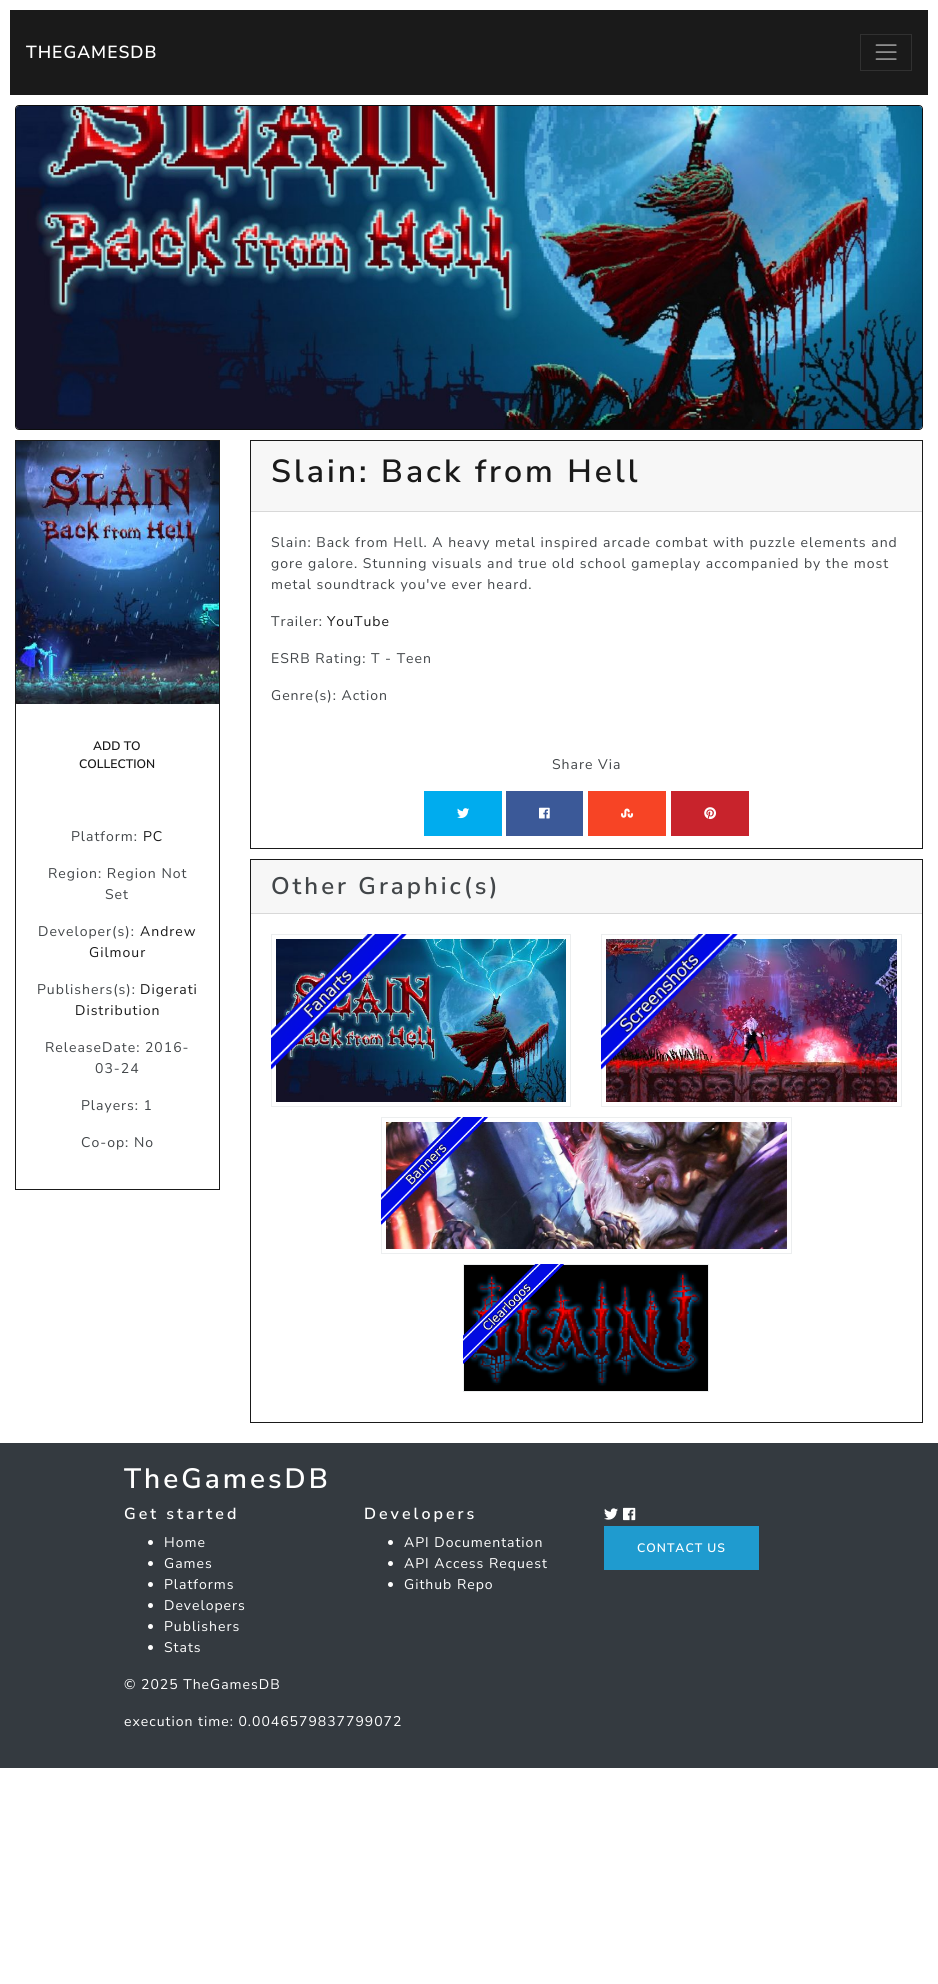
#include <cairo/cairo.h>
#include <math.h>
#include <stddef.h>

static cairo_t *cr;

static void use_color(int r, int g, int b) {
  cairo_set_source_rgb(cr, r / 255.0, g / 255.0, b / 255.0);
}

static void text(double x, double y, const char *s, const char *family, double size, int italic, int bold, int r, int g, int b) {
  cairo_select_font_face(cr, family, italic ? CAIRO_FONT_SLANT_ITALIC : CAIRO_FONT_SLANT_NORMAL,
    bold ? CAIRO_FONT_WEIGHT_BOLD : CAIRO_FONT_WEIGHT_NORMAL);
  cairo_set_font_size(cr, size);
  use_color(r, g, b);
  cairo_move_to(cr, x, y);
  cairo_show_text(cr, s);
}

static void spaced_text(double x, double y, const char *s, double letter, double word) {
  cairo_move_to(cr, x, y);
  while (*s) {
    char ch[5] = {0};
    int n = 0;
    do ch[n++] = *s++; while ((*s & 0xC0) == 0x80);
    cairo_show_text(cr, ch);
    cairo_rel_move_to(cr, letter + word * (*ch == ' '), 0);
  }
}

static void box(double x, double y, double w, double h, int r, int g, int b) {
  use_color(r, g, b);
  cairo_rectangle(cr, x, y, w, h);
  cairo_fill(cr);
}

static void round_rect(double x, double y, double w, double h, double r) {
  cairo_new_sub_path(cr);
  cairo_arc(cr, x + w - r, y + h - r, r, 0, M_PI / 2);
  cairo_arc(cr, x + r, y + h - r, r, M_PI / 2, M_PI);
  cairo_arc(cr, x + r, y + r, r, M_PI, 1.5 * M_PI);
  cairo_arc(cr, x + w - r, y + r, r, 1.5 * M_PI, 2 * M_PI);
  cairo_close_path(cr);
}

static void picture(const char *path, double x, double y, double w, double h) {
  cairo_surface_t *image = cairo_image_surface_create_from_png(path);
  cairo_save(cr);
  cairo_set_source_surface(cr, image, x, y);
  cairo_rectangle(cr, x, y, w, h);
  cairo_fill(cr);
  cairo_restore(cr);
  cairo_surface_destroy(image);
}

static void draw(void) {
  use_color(255, 255, 255);
  cairo_paint(cr);
  box(10, 10, 918, 85, 26, 26, 26);
  cairo_rectangle(cr, 860.5, 34.5, 51, 36);
  use_color(49, 49, 49);
  cairo_set_line_width(cr, 1);
  cairo_stroke(cr);
  picture("img_01.png", 875, 44, 22, 16);
  round_rect(15.5, 105.5, 907, 324, 3.5);
  use_color(12, 13, 14);
  cairo_stroke(cr);
  picture("img_02.png", 16, 106, 906, 323);
  cairo_rectangle(cr, 250.5, 440.5, 672, 408);
  use_color(26, 26, 26);
  cairo_stroke(cr);
  box(251, 441, 671, 70, 247, 247, 247);
  box(251, 511, 671, 1, 216, 216, 216);
  box(424, 791, 78, 45, 0, 172, 238);
  picture("img_03.png", 457, 808, 13, 11);
  box(506, 791, 77, 45, 59, 89, 152);
  picture("img_04.png", 539, 807, 11, 12);
  box(588, 791, 78, 45, 247, 68, 37);
  picture("img_05.png", 621, 808, 13, 10);
  box(671, 791, 78, 45, 200, 35, 44);
  picture("img_06.png", 704, 807, 13, 13);
  cairo_rectangle(cr, 250.5, 859.5, 672, 563);
  use_color(26, 26, 26);
  cairo_stroke(cr);
  box(251, 860, 671, 53, 247, 247, 247);
  box(251, 913, 671, 1, 216, 216, 216);
  cairo_rectangle(cr, 271.5, 934.5, 299, 172);
  use_color(236, 238, 239);
  cairo_stroke(cr);
  picture("img_08.png", 276, 939, 290, 163);
  picture("img_07.png", 271, 934, 136, 136);
  cairo_rectangle(cr, 601.5, 934.5, 300, 172);
  cairo_stroke(cr);
  picture("img_10.png", 606, 939, 291, 163);
  picture("img_09.png", 601, 934, 137, 136);
  cairo_rectangle(cr, 381.5, 1117.5, 410, 136);
  cairo_stroke(cr);
  picture("img_12.png", 386, 1122, 401, 127);
  picture("img_11.png", 381, 1117, 107, 108);
  use_color(0, 0, 0);
  cairo_rectangle(cr, 463.5, 1264.5, 245, 127);
  cairo_fill_preserve(cr);
  use_color(236, 238, 239);
  cairo_stroke(cr);
  picture("img_14.png", 468, 1270, 235, 116);
  picture("img_13.png", 463, 1264, 101, 100);
  cairo_rectangle(cr, 15.5, 440.5, 204, 749);
  use_color(26, 26, 26);
  cairo_stroke(cr);
  picture("img_15.png", 16, 441, 203, 263);
  box(0, 1443, 938, 325, 52, 58, 64);
  use_color(255, 255, 255);
  cairo_arc(cr, 150.5, 1542.5, 2.5, 0, 2 * M_PI);
  cairo_fill(cr);
  cairo_arc(cr, 150.5, 1563.5, 2.5, 0, 2 * M_PI);
  cairo_fill(cr);
  cairo_arc(cr, 150.5, 1584.5, 2.5, 0, 2 * M_PI);
  cairo_fill(cr);
  cairo_arc(cr, 150.5, 1605.5, 2.5, 0, 2 * M_PI);
  cairo_fill(cr);
  cairo_arc(cr, 150.5, 1626.5, 2.5, 0, 2 * M_PI);
  cairo_fill(cr);
  cairo_arc(cr, 150.5, 1647.5, 2.5, 0, 2 * M_PI);
  cairo_fill(cr);
  cairo_arc(cr, 390.5, 1542.5, 2.5, 0, 2 * M_PI);
  cairo_fill(cr);
  cairo_arc(cr, 390.5, 1563.5, 2.5, 0, 2 * M_PI);
  cairo_fill(cr);
  cairo_arc(cr, 390.5, 1584.5, 2.5, 0, 2 * M_PI);
  cairo_fill(cr);
  picture("img_16.png", 604, 1508, 14, 12);
  picture("img_17.png", 623, 1507, 13, 14);
  box(604, 1526, 155, 44, 31, 155, 207);
  cairo_select_font_face(cr, "Nunito Sans SemiBold", CAIRO_FONT_SLANT_NORMAL, CAIRO_FONT_WEIGHT_NORMAL);
  cairo_set_font_size(cr, 17.5);
  use_color(255, 255, 255);
  spaced_text(26, 58, "THEGAMESDB", 1, 0);
  cairo_set_font_size(cr, 32);
  use_color(26, 26, 26);
  spaced_text(271, 482, "Slain: Back from Hell", 3, 0);
  cairo_select_font_face(cr, "Nunito Sans", CAIRO_FONT_SLANT_NORMAL, CAIRO_FONT_WEIGHT_NORMAL);
  cairo_set_font_size(cr, 14);
  use_color(66, 70, 73);
  spaced_text(271, 547, "Slain: Back from Hell. A heavy metal inspired arcade combat with puzzle elements and", 1, 0);
  spaced_text(271, 568, "gore galore. Stunning visuals and true old school gameplay accompanied by the most", 1, 0);
  spaced_text(271, 589, "metal soundtrack you've ever heard.", 1, 0);
  spaced_text(271, 626, "Trailer:", 1, 0);
  use_color(26, 26, 26);
  spaced_text(327, 626, "YouTube", 1, 0);
  use_color(66, 70, 73);
  spaced_text(271, 663, "ESRB Rating: T - Teen", 1, 0);
  spaced_text(271, 700, "Genre(s): Action", 1, 0);
  spaced_text(552, 769, "Share Via", 1, 0);
  cairo_select_font_face(cr, "Nunito Sans SemiBold", CAIRO_FONT_SLANT_NORMAL, CAIRO_FONT_WEIGHT_NORMAL);
  cairo_set_font_size(cr, 24);
  spaced_text(271, 894, "Other Graphic(s)", 3, 0);
  text(93, 750, "ADD TO", "Nunito Sans SemiBold", 12.25, 0, 0, 26, 26, 26);
  text(79, 768, "COLLECTION", "Nunito Sans SemiBold", 12.25, 0, 0, 26, 26, 26);
  cairo_select_font_face(cr, "Nunito Sans", CAIRO_FONT_SLANT_NORMAL, CAIRO_FONT_WEIGHT_NORMAL);
  cairo_set_font_size(cr, 14);
  use_color(66, 70, 73);
  spaced_text(71, 841, "Platform:", 1, 0);
  use_color(26, 26, 26);
  spaced_text(143, 841, "PC", 1, 0);
  use_color(66, 70, 73);
  spaced_text(48, 878, "Region: Region Not", 1, 0);
  spaced_text(105, 899, "Set", 1, 0);
  spaced_text(38, 936, "Developer(s):", 1, 0);
  use_color(26, 26, 26);
  spaced_text(140, 936, "Andrew", 1, 0);
  spaced_text(89, 957, "Gilmour", 1, 0);
  use_color(66, 70, 73);
  spaced_text(37, 994, "Publishers(s):", 1, 0);
  use_color(26, 26, 26);
  spaced_text(140, 994, "Digerati", 1, 0);
  spaced_text(75, 1015, "Distribution", 1, 0);
  use_color(66, 70, 73);
  spaced_text(45, 1052, "ReleaseDate: 2016-", 1, 0);
  spaced_text(95, 1073, "03-24", 1, 0);
  spaced_text(81, 1110, "Players: 1", 1, 0);
  spaced_text(81, 1147, "Co-op: No", 1, 0);
  cairo_select_font_face(cr, "Nunito Sans SemiBold", CAIRO_FONT_SLANT_NORMAL, CAIRO_FONT_WEIGHT_NORMAL);
  cairo_set_font_size(cr, 28);
  use_color(255, 255, 255);
  spaced_text(124, 1488, "TheGamesDB", 3, 0);
  cairo_set_font_size(cr, 16);
  spaced_text(124, 1519, "Get started", 3, 0);
  cairo_select_font_face(cr, "Nunito Sans", CAIRO_FONT_SLANT_NORMAL, CAIRO_FONT_WEIGHT_NORMAL);
  cairo_set_font_size(cr, 14);
  spaced_text(164, 1547, "Home", 1, 0);
  spaced_text(164, 1568, "Games", 1, 0);
  spaced_text(164, 1589, "Platforms", 1, 0);
  spaced_text(164, 1610, "Developers", 1, 0);
  spaced_text(164, 1631, "Publishers", 1, 0);
  spaced_text(164, 1652, "Stats", 1, 0);
  cairo_select_font_face(cr, "Nunito Sans SemiBold", CAIRO_FONT_SLANT_NORMAL, CAIRO_FONT_WEIGHT_NORMAL);
  cairo_set_font_size(cr, 16);
  spaced_text(364, 1519, "Developers", 3, 0);
  cairo_select_font_face(cr, "Nunito Sans", CAIRO_FONT_SLANT_NORMAL, CAIRO_FONT_WEIGHT_NORMAL);
  cairo_set_font_size(cr, 14);
  spaced_text(404, 1547, "API Documentation", 1, 0);
  spaced_text(404, 1568, "API Access Request", 1, 0);
  spaced_text(404, 1589, "Github Repo", 1, 0);
  cairo_select_font_face(cr, "Nunito Sans SemiBold", CAIRO_FONT_SLANT_NORMAL, CAIRO_FONT_WEIGHT_NORMAL);
  cairo_set_font_size(cr, 12.25);
  spaced_text(637, 1552, "CONTACT US", 1, 0);
  cairo_select_font_face(cr, "Nunito Sans", CAIRO_FONT_SLANT_NORMAL, CAIRO_FONT_WEIGHT_NORMAL);
  cairo_set_font_size(cr, 14);
  spaced_text(124, 1689, "© 2025 TheGamesDB", 1, 0);
  spaced_text(124, 1726, "execution time: 0.0046579837799072", 1, 0);
}

int main(void) {
  cairo_surface_t *surface = cairo_image_surface_create(CAIRO_FORMAT_RGB24, 938, 1984);
  cr = cairo_create(surface);
  cairo_font_options_t *options = cairo_font_options_create();
  cairo_font_options_set_hint_metrics(options, CAIRO_HINT_METRICS_OFF);
  cairo_font_options_set_hint_style(options, CAIRO_HINT_STYLE_NONE);
  cairo_set_font_options(cr, options);
  cairo_set_miter_limit(cr, 4);
  draw();
  cairo_surface_write_to_png(surface, "out.png");
  cairo_font_options_destroy(options);
  cairo_destroy(cr);
  cairo_surface_destroy(surface);
  return 0;
}
